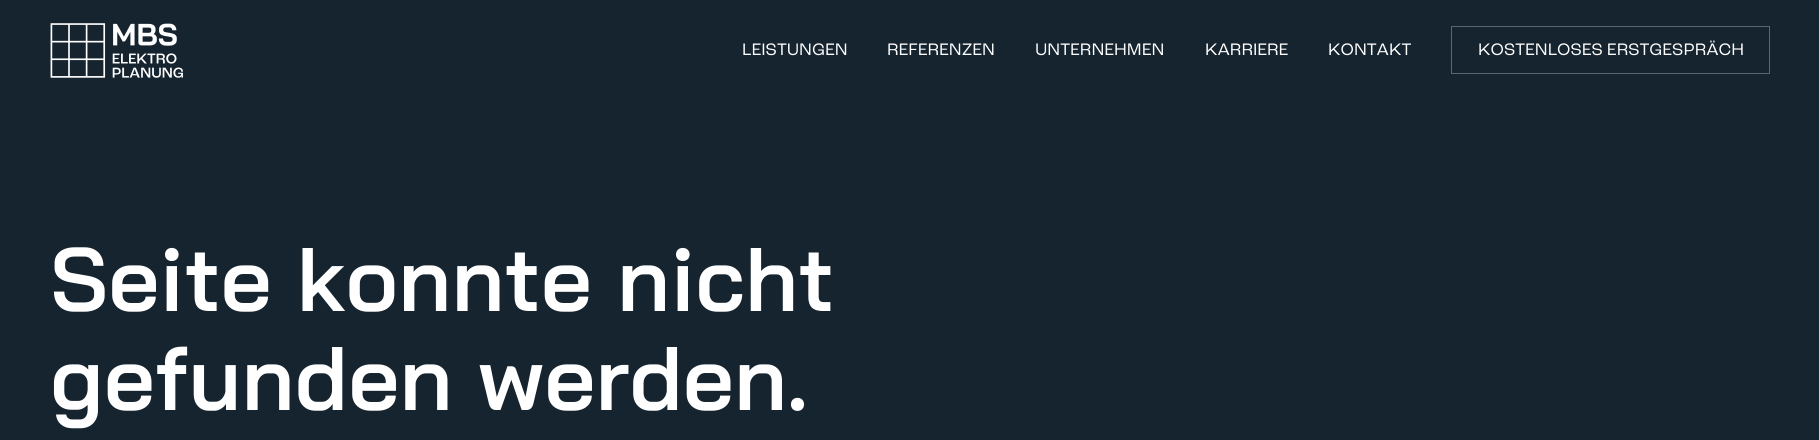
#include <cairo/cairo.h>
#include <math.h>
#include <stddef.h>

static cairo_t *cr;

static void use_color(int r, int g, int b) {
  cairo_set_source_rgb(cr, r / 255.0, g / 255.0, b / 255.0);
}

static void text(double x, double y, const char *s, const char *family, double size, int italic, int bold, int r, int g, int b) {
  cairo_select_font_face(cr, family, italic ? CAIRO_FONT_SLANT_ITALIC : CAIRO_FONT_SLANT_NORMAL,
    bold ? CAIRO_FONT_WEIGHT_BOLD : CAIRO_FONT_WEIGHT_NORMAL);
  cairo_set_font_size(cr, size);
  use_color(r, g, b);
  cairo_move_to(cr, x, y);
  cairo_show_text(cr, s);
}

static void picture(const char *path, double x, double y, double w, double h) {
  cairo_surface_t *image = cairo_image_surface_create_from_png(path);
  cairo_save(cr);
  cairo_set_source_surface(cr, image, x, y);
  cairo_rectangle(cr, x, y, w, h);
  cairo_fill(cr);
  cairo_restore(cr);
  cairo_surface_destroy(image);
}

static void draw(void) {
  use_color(22, 36, 47);
  cairo_paint(cr);
  picture("img_01.png", 50, 23, 133, 55);
  cairo_rectangle(cr, 1451.5, 26.5, 318, 47);
  use_color(92, 102, 109);
  cairo_set_line_width(cr, 1);
  cairo_stroke(cr);
  text(742, 55, "LEISTUNGEN", "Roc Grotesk", 17.5, 0, 0, 255, 255, 255);
  text(887, 55, "REFERENZEN", "Roc Grotesk", 17.5, 0, 0, 255, 255, 255);
  text(1035, 55, "UNTERNEHMEN", "Roc Grotesk", 17.5, 0, 0, 255, 255, 255);
  text(1205, 55, "KARRIERE", "Roc Grotesk", 17.5, 0, 0, 255, 255, 255);
  text(1328, 55, "KONTAKT", "Roc Grotesk", 17.5, 0, 0, 255, 255, 255);
  text(1478, 55, "KOSTENLOSES ERSTGESPRÄCH", "Roc Grotesk", 17.5, 0, 0, 255, 255, 255);
  text(50, 311, "Seite konnte nicht", "Bai Jamjuree SemiBold", 90, 0, 0, 255, 255, 255);
  text(50, 410, "gefunden werden.", "Bai Jamjuree SemiBold", 90, 0, 0, 255, 255, 255);
}

int main(void) {
  cairo_surface_t *surface = cairo_image_surface_create(CAIRO_FORMAT_RGB24, 1819, 440);
  cr = cairo_create(surface);
  cairo_font_options_t *options = cairo_font_options_create();
  cairo_font_options_set_hint_metrics(options, CAIRO_HINT_METRICS_OFF);
  cairo_font_options_set_hint_style(options, CAIRO_HINT_STYLE_NONE);
  cairo_set_font_options(cr, options);
  cairo_set_miter_limit(cr, 4);
  draw();
  cairo_surface_write_to_png(surface, "out.png");
  cairo_font_options_destroy(options);
  cairo_destroy(cr);
  cairo_surface_destroy(surface);
  return 0;
}
